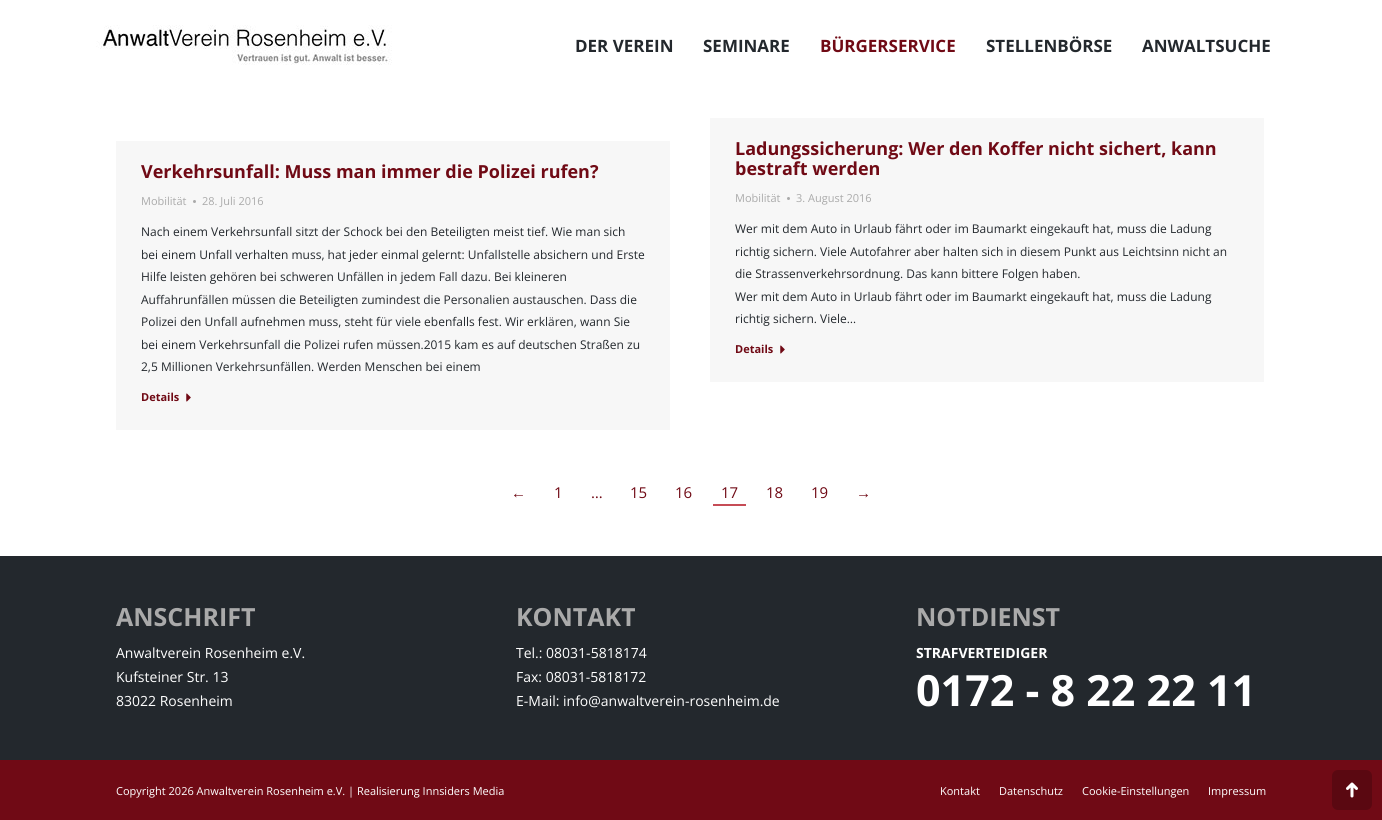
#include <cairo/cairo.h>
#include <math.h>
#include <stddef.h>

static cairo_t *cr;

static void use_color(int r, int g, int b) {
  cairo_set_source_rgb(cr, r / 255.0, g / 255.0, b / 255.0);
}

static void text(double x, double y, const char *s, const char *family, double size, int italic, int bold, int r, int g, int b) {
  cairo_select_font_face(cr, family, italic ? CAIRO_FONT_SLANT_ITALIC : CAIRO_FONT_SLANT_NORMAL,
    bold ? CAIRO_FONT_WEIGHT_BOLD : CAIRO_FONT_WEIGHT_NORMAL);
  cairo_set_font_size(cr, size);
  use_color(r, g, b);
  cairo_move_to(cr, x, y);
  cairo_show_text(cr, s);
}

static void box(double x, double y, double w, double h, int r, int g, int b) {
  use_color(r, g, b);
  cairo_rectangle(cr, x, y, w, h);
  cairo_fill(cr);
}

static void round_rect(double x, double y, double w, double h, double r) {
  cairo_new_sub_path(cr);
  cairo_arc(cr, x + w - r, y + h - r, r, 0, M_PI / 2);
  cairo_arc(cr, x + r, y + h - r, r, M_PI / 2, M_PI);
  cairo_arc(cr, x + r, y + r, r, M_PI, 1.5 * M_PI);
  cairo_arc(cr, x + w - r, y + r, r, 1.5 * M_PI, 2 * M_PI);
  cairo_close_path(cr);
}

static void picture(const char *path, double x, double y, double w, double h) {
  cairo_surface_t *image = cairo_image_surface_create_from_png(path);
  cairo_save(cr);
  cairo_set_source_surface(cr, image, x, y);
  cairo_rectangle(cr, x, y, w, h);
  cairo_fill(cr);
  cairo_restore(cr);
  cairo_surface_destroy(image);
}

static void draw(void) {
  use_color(255, 255, 255);
  cairo_paint(cr);
  picture("img_01.png", 96, 25, 296, 40);
  box(116, 141, 554, 289, 247, 247, 247);
  use_color(170, 170, 170);
  cairo_arc(cr, 194.5, 201.5, 1.5, 0, 2 * M_PI);
  cairo_fill(cr);
  picture("img_02.png", 186, 393, 5, 9);
  box(710, 118, 554, 264, 247, 247, 247);
  use_color(170, 170, 170);
  cairo_arc(cr, 788.5, 198.5, 1.5, 0, 2 * M_PI);
  cairo_fill(cr);
  picture("img_02.png", 780, 345, 5, 9);
  box(713, 504, 33, 2, 198, 76, 86);
  box(0, 556, 1382, 204, 35, 40, 45);
  box(0, 760, 1382, 60, 112, 10, 21);
  use_color(90, 8, 17);
  round_rect(1332, 770, 40, 40, 6);
  cairo_fill(cr);
  picture("img_03.png", 1346, 782, 12, 16);
  text(575, 52, "DER VEREIN", "Open Sans", 17, 0, 1, 35, 40, 45);
  text(703, 52, "SEMINARE", "Open Sans", 17, 0, 1, 35, 40, 45);
  text(820, 52, "BÜRGERSERVICE", "Open Sans", 17, 0, 1, 112, 10, 21);
  text(986, 52, "STELLENBÖRSE", "Open Sans", 17, 0, 1, 35, 40, 45);
  text(1142, 52, "ANWALTSUCHE", "Open Sans", 17, 0, 1, 35, 40, 45);
  text(141, 178, "Verkehrsunfall: Muss man immer die Polizei rufen?", "Open Sans", 18, 0, 1, 112, 10, 21);
  text(141, 205, "Mobilität", "Open Sans", 11, 0, 0, 170, 170, 170);
  text(202, 205, "28. Juli 2016", "Open Sans", 11, 0, 0, 170, 170, 170);
  text(141, 236, "Nach einem Verkehrsunfall sitzt der Schock bei den Beteiligten meist tief. Wie man sich", "Open Sans", 12, 0, 0, 35, 40, 45);
  text(141, 259, "bei einem Unfall verhalten muss, hat jeder einmal gelernt: Unfallstelle absichern und Erste", "Open Sans", 12, 0, 0, 35, 40, 45);
  text(141, 281, "Hilfe leisten gehören bei schweren Unfällen in jedem Fall dazu. Bei kleineren", "Open Sans", 12, 0, 0, 35, 40, 45);
  text(141, 304, "Auffahrunfällen müssen die Beteiligten zumindest die Personalien austauschen. Dass die", "Open Sans", 12, 0, 0, 35, 40, 45);
  text(141, 326, "Polizei den Unfall aufnehmen muss, steht für viele ebenfalls fest. Wir erklären, wann Sie", "Open Sans", 12, 0, 0, 35, 40, 45);
  text(141, 349, "bei einem Verkehrsunfall die Polizei rufen müssen.2015 kam es auf deutschen Straßen zu", "Open Sans", 12, 0, 0, 35, 40, 45);
  text(141, 371, "2,5 Millionen Verkehrsunfällen. Werden Menschen bei einem", "Open Sans", 12, 0, 0, 35, 40, 45);
  text(141, 401, "Details", "Open Sans", 11, 0, 1, 112, 10, 21);
  text(735, 155, "Ladungssicherung: Wer den Koffer nicht sichert, kann", "Open Sans", 18, 0, 1, 112, 10, 21);
  text(735, 175, "bestraft werden", "Open Sans", 18, 0, 1, 112, 10, 21);
  text(735, 202, "Mobilität", "Open Sans", 11, 0, 0, 170, 170, 170);
  text(796, 202, "3. August 2016", "Open Sans", 11, 0, 0, 170, 170, 170);
  text(735, 233, "Wer mit dem Auto in Urlaub fährt oder im Baumarkt eingekauft hat, muss die Ladung", "Open Sans", 12, 0, 0, 35, 40, 45);
  text(735, 256, "richtig sichern. Viele Autofahrer aber halten sich in diesem Punkt aus Leichtsinn nicht an", "Open Sans", 12, 0, 0, 35, 40, 45);
  text(735, 278, "die Strassenverkehrsordnung. Das kann bittere Folgen haben.", "Open Sans", 12, 0, 0, 35, 40, 45);
  text(735, 301, "Wer mit dem Auto in Urlaub fährt oder im Baumarkt eingekauft hat, muss die Ladung", "Open Sans", 12, 0, 0, 35, 40, 45);
  text(735, 323, "richtig sichern. Viele…", "Open Sans", 12, 0, 0, 35, 40, 45);
  text(735, 353, "Details", "Open Sans", 11, 0, 1, 112, 10, 21);
  text(511, 498, "←", "Liberation Sans", 15, 0, 0, 112, 10, 21);
  text(554, 498, "1", "Open Sans", 15, 0, 0, 112, 10, 21);
  text(591, 498, "…", "Open Sans", 15, 0, 0, 112, 10, 21);
  text(630, 498, "15", "Open Sans", 15, 0, 0, 112, 10, 21);
  text(675, 498, "16", "Open Sans", 15, 0, 0, 112, 10, 21);
  text(721, 498, "17", "Open Sans", 15, 0, 0, 112, 10, 21);
  text(766, 498, "18", "Open Sans", 15, 0, 0, 112, 10, 21);
  text(811, 498, "19", "Open Sans", 15, 0, 0, 112, 10, 21);
  text(856, 498, "→", "Liberation Sans", 15, 0, 0, 112, 10, 21);
  text(116, 626, "ANSCHRIFT", "Open Sans", 25, 0, 1, 170, 170, 170);
  text(116, 658, "Anwaltverein Rosenheim e.V.", "Open Sans", 14, 0, 0, 255, 255, 255);
  text(116, 682, "Kufsteiner Str. 13", "Open Sans", 14, 0, 0, 255, 255, 255);
  text(116, 706, "83022 Rosenheim", "Open Sans", 14, 0, 0, 255, 255, 255);
  text(516, 626, "KONTAKT", "Open Sans", 25, 0, 1, 170, 170, 170);
  text(516, 658, "Tel.: 08031-5818174", "Open Sans", 14, 0, 0, 255, 255, 255);
  text(516, 682, "Fax: 08031-5818172", "Open Sans", 14, 0, 0, 255, 255, 255);
  text(516, 706, "E-Mail: info@anwaltverein-rosenheim.de", "Open Sans", 14, 0, 0, 255, 255, 255);
  text(916, 626, "NOTDIENST", "Open Sans", 25, 0, 1, 170, 170, 170);
  text(916, 658, "STRAFVERTEIDIGER", "Open Sans", 14, 0, 1, 255, 255, 255);
  text(916, 706, "0172 - 8 22 22 11", "Open Sans", 43, 0, 1, 255, 255, 255);
  text(116, 795, "Copyright 2026 Anwaltverein Rosenheim e.V. | Realisierung Innsiders Media", "Open Sans", 11, 0, 0, 255, 255, 255);
  text(940, 795, "Kontakt", "Open Sans", 11, 0, 0, 255, 255, 255);
  text(999, 795, "Datenschutz", "Open Sans", 11, 0, 0, 255, 255, 255);
  text(1082, 795, "Cookie-Einstellungen", "Open Sans", 11, 0, 0, 255, 255, 255);
  text(1208, 795, "Impressum", "Open Sans", 11, 0, 0, 255, 255, 255);
}

int main(void) {
  cairo_surface_t *surface = cairo_image_surface_create(CAIRO_FORMAT_RGB24, 1382, 820);
  cr = cairo_create(surface);
  cairo_font_options_t *options = cairo_font_options_create();
  cairo_font_options_set_hint_metrics(options, CAIRO_HINT_METRICS_OFF);
  cairo_font_options_set_hint_style(options, CAIRO_HINT_STYLE_NONE);
  cairo_set_font_options(cr, options);
  cairo_set_miter_limit(cr, 4);
  draw();
  cairo_surface_write_to_png(surface, "out.png");
  cairo_font_options_destroy(options);
  cairo_destroy(cr);
  cairo_surface_destroy(surface);
  return 0;
}
